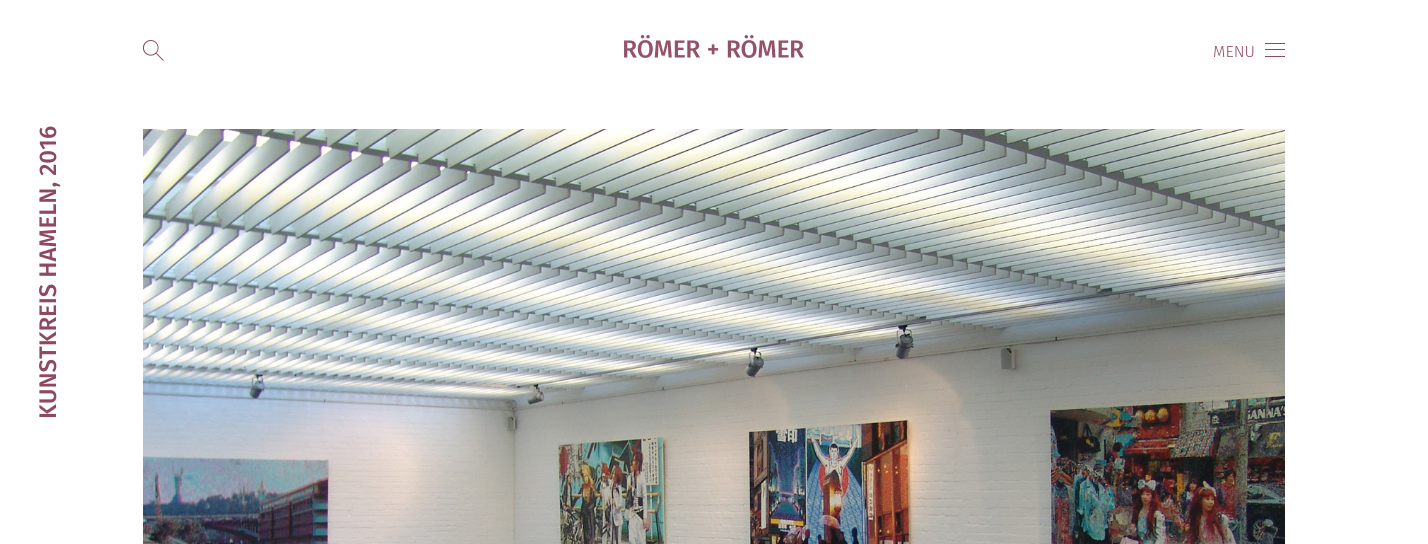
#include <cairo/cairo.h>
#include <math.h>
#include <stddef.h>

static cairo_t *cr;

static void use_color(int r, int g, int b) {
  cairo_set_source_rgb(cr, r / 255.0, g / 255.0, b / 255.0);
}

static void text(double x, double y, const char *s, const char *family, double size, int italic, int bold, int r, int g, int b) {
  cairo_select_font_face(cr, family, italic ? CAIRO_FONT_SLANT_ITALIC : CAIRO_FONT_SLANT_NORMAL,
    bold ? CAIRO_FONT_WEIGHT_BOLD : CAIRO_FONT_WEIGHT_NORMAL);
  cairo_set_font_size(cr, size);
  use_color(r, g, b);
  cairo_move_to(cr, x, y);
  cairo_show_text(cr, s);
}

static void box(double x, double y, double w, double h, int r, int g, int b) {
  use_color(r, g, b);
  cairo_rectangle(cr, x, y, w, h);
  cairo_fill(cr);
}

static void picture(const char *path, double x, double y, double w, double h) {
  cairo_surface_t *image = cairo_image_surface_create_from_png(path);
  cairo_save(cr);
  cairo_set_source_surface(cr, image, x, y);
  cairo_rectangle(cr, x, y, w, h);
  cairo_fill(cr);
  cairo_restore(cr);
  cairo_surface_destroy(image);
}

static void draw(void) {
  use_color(255, 255, 255);
  cairo_paint(cr);
  picture("img_01.png", 143, 40, 21, 21);
  picture("img_02.png", 624, 35, 180, 23);
  box(1265, 43, 20, 1, 142, 73, 96);
  box(1265, 56, 20, 1, 142, 73, 96);
  box(1265, 49, 20, 1, 142, 73, 96);
  picture("img_03.png", 143, 129, 1142, 415);
  text(1213, 57, "MENU", "Fira Sans Light", 16, 0, 0, 142, 73, 96);
  cairo_save(cr);
  cairo_translate(cr, 56, 419);
  cairo_rotate(cr, -90 * M_PI / 180);
  text(0, 0, "KUNSTKREIS HAMELN, 2016", "Fira Sans Medium", 24, 0, 0, 142, 73, 96);
  cairo_restore(cr);
}

int main(void) {
  cairo_surface_t *surface = cairo_image_surface_create(CAIRO_FORMAT_RGB24, 1428, 544);
  cr = cairo_create(surface);
  cairo_font_options_t *options = cairo_font_options_create();
  cairo_font_options_set_hint_metrics(options, CAIRO_HINT_METRICS_OFF);
  cairo_font_options_set_hint_style(options, CAIRO_HINT_STYLE_NONE);
  cairo_set_font_options(cr, options);
  cairo_set_miter_limit(cr, 4);
  draw();
  cairo_surface_write_to_png(surface, "out.png");
  cairo_font_options_destroy(options);
  cairo_destroy(cr);
  cairo_surface_destroy(surface);
  return 0;
}
